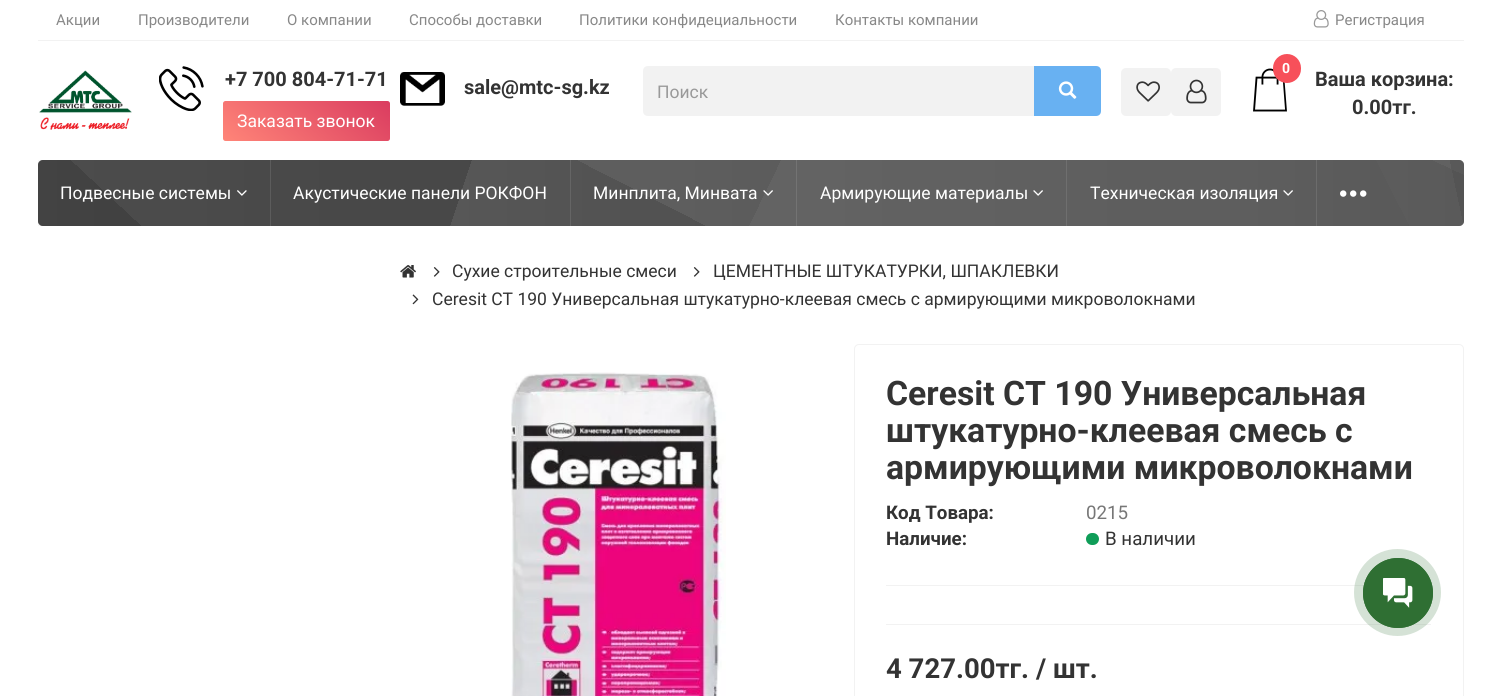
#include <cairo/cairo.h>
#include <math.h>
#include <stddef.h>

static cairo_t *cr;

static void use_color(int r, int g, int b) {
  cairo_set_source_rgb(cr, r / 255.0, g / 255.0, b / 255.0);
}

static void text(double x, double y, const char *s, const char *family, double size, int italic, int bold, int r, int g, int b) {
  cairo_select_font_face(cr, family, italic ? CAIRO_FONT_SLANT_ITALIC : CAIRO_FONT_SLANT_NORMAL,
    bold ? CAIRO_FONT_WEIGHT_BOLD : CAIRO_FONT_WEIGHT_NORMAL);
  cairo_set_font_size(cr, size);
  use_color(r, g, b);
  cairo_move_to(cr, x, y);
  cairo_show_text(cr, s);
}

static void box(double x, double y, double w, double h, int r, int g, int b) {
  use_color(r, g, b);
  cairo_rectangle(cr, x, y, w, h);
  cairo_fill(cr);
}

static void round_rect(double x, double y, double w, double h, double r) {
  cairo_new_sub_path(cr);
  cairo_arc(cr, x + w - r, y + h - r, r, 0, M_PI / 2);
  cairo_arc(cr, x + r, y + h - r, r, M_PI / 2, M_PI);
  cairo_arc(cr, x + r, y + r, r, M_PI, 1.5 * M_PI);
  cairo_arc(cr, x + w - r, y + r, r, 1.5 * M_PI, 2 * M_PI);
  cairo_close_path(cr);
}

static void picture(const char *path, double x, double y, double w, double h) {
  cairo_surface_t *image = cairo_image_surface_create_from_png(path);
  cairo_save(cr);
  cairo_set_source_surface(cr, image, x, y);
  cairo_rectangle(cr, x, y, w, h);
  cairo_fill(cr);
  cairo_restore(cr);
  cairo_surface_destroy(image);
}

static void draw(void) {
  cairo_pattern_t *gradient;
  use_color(255, 255, 255);
  cairo_paint(cr);
  box(38, 40, 1426, 1, 242, 242, 242);
  picture("img_01.png", 1313, 10, 16, 18);
  picture("img_02.png", 39, 70, 93, 60);
  picture("img_03.png", 159, 66, 45, 45);
  gradient = cairo_pattern_create_linear(262, 174, 351, 68);
  cairo_pattern_add_color_stop_rgba(gradient, 0, 1, 0.522, 0.471, 1);
  cairo_pattern_add_color_stop_rgba(gradient, 1, 0.855, 0.235, 0.376, 1);
  cairo_set_source(cr, gradient);
  cairo_pattern_destroy(gradient);
  round_rect(223, 101, 167, 40, 2.5);
  cairo_fill(cr);
  picture("img_04.png", 400, 72, 45, 34);
  use_color(242, 242, 242);
  cairo_new_path(cr);
  cairo_move_to(cr, 648, 66);
  cairo_line_to(cr, 1035, 66);
  cairo_line_to(cr, 1035, 116);
  cairo_line_to(cr, 648, 116);
  cairo_curve_to(cr, 645, 116, 643, 114, 643, 111);
  cairo_line_to(cr, 643, 71);
  cairo_curve_to(cr, 643, 68, 645, 66, 648, 66);
  cairo_close_path(cr);
  cairo_fill(cr);
  use_color(104, 177, 242);
  cairo_new_path(cr);
  cairo_move_to(cr, 1034, 66);
  cairo_line_to(cr, 1096, 66);
  cairo_curve_to(cr, 1099, 66, 1101, 68, 1101, 71);
  cairo_line_to(cr, 1101, 111);
  cairo_curve_to(cr, 1101, 114, 1099, 116, 1096, 116);
  cairo_line_to(cr, 1034, 116);
  cairo_close_path(cr);
  cairo_fill(cr);
  picture("img_05.png", 1058, 81, 19, 18);
  use_color(242, 242, 242);
  round_rect(1121, 68, 50, 48, 5);
  cairo_fill(cr);
  picture("img_06.png", 1136, 81, 24, 21);
  round_rect(1171, 68, 50, 48, 5);
  cairo_fill(cr);
  picture("img_07.png", 1186, 79, 21, 25);
  picture("img_08.png", 1253, 68, 34, 44);
  use_color(247, 80, 90);
  round_rect(1273, 54, 28, 29, 14);
  cairo_fill(cr);
  gradient = cairo_pattern_create_linear(38, 193, 1464, 193);
  cairo_pattern_add_color_stop_rgba(gradient, 0, 0.149, 0.149, 0.149, 1);
  cairo_pattern_add_color_stop_rgba(gradient, 1, 0, 0, 0, 1);
  cairo_set_source(cr, gradient);
  cairo_pattern_destroy(gradient);
  round_rect(38, 160, 1426, 66, 5);
  cairo_fill(cr);
  gradient = cairo_pattern_create_linear(611, 493, 891, -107);
  cairo_pattern_add_color_stop_rgba(gradient, 0, 0.463, 0.463, 0.463, 0.07);
  cairo_pattern_add_color_stop_rgba(gradient, 0.98, 0.463, 0.463, 0.463, 0.07);
  cairo_pattern_add_color_stop_rgba(gradient, 0.98, 0.973, 0.973, 0.973, 0.07);
  cairo_pattern_add_color_stop_rgba(gradient, 1, 0.973, 0.973, 0.973, 0.07);
  cairo_set_source(cr, gradient);
  cairo_pattern_destroy(gradient);
  round_rect(38, 160, 1426, 66, 5);
  cairo_fill(cr);
  gradient = cairo_pattern_create_linear(911, -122, 590, 508);
  cairo_pattern_add_color_stop_rgba(gradient, 0, 0.702, 0.702, 0.702, 0.1);
  cairo_pattern_add_color_stop_rgba(gradient, 0.57, 0.702, 0.702, 0.702, 0.1);
  cairo_pattern_add_color_stop_rgba(gradient, 0.57, 0.043, 0.043, 0.043, 0.1);
  cairo_pattern_add_color_stop_rgba(gradient, 1, 0.043, 0.043, 0.043, 0.1);
  cairo_set_source(cr, gradient);
  cairo_pattern_destroy(gradient);
  round_rect(38, 160, 1426, 66, 5);
  cairo_fill(cr);
  gradient = cairo_pattern_create_linear(171, 488, 1330, -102);
  cairo_pattern_add_color_stop_rgba(gradient, 0, 0.827, 0.827, 0.827, 0.1);
  cairo_pattern_add_color_stop_rgba(gradient, 0.94, 0.827, 0.827, 0.827, 0.1);
  cairo_pattern_add_color_stop_rgba(gradient, 0.94, 0.914, 0.914, 0.914, 0.1);
  cairo_pattern_add_color_stop_rgba(gradient, 1, 0.914, 0.914, 0.914, 0.1);
  cairo_set_source(cr, gradient);
  cairo_pattern_destroy(gradient);
  round_rect(38, 160, 1426, 66, 5);
  cairo_fill(cr);
  gradient = cairo_pattern_create_linear(402, 567, 1099, -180);
  cairo_pattern_add_color_stop_rgba(gradient, 0, 0.067, 0.067, 0.067, 0.09);
  cairo_pattern_add_color_stop_rgba(gradient, 0.07, 0.067, 0.067, 0.067, 0.09);
  cairo_pattern_add_color_stop_rgba(gradient, 0.07, 0.624, 0.624, 0.624, 0.09);
  cairo_pattern_add_color_stop_rgba(gradient, 1, 0.624, 0.624, 0.624, 0.09);
  cairo_set_source(cr, gradient);
  cairo_pattern_destroy(gradient);
  round_rect(38, 160, 1426, 66, 5);
  cairo_fill(cr);
  gradient = cairo_pattern_create_linear(1440, 47, 62, 340);
  cairo_pattern_add_color_stop_rgba(gradient, 0, 0.404, 0.404, 0.404, 0.07);
  cairo_pattern_add_color_stop_rgba(gradient, 0.01, 0.404, 0.404, 0.404, 0.07);
  cairo_pattern_add_color_stop_rgba(gradient, 0.01, 0.82, 0.82, 0.82, 0.07);
  cairo_pattern_add_color_stop_rgba(gradient, 1, 0.82, 0.82, 0.82, 0.07);
  cairo_set_source(cr, gradient);
  cairo_pattern_destroy(gradient);
  round_rect(38, 160, 1426, 66, 5);
  cairo_fill(cr);
  gradient = cairo_pattern_create_linear(161, -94, 1340, 480);
  cairo_pattern_add_color_stop_rgba(gradient, 0, 0.396, 0.396, 0.396, 0.06);
  cairo_pattern_add_color_stop_rgba(gradient, 0.51, 0.396, 0.396, 0.396, 0.06);
  cairo_pattern_add_color_stop_rgba(gradient, 0.51, 0.906, 0.906, 0.906, 0.06);
  cairo_pattern_add_color_stop_rgba(gradient, 1, 0.906, 0.906, 0.906, 0.06);
  cairo_set_source(cr, gradient);
  cairo_pattern_destroy(gradient);
  cairo_rectangle(cr, 38, 160, 1426, 66);
  cairo_fill(cr);
  gradient = cairo_pattern_create_linear(96, -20, 1405, 406);
  cairo_pattern_add_color_stop_rgba(gradient, 0, 0.243, 0.243, 0.243, 0.09);
  cairo_pattern_add_color_stop_rgba(gradient, 0.3, 0.243, 0.243, 0.243, 0.09);
  cairo_pattern_add_color_stop_rgba(gradient, 0.3, 0.918, 0.918, 0.918, 0.09);
  cairo_pattern_add_color_stop_rgba(gradient, 1, 0.918, 0.918, 0.918, 0.09);
  cairo_set_source(cr, gradient);
  cairo_pattern_destroy(gradient);
  round_rect(38, 160, 1426, 66, 5);
  cairo_fill(cr);
  picture("img_09.png", 237, 190, 10, 6);
  box(270, 160, 1, 66, 92, 92, 92);
  box(570, 160, 1, 66, 101, 101, 101);
  picture("img_10.png", 763, 190, 10, 6);
  box(796, 160, 1, 66, 115, 115, 115);
  picture("img_11.png", 1033, 190, 10, 6);
  box(1066, 160, 1, 66, 111, 111, 111);
  picture("img_12.png", 1283, 190, 10, 6);
  box(1316, 160, 1, 66, 108, 108, 108);
  picture("img_13.png", 1340, 190, 7, 7);
  picture("img_13.png", 1350, 190, 7, 7);
  picture("img_13.png", 1360, 190, 7, 7);
  picture("img_14.png", 400, 265, 16, 13);
  picture("img_15.png", 433, 267, 7, 10);
  picture("img_15.png", 693, 267, 7, 10);
  picture("img_16.png", 412, 294, 7, 11);
  picture("img_17.png", 511, 372, 215, 324);
  round_rect(854.5, 344.5, 609, 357, 4.5);
  use_color(242, 242, 242);
  cairo_set_line_width(cr, 1);
  cairo_stroke(cr);
  use_color(15, 157, 88);
  round_rect(1086, 533, 13, 12, 6);
  cairo_fill(cr);
  box(886, 585, 478, 1, 242, 242, 242);
  box(886, 624, 545, 1, 242, 242, 242);
  cairo_set_source_rgba(cr, 0.184, 0.435, 0.2, 0.2);
  cairo_arc(cr, 1397.5, 592.5, 43.5, 0, 2 * M_PI);
  cairo_fill(cr);
  cairo_arc(cr, 1398, 593, 34.5, 0, 2 * M_PI);
  use_color(47, 111, 51);
  cairo_stroke(cr);
  cairo_arc(cr, 1398, 593, 35, 0, 2 * M_PI);
  cairo_fill(cr);
  picture("img_18.png", 1383, 578, 30, 30);
  text(56, 25, "Акции", "Roboto", 15, 0, 0, 136, 136, 136);
  text(138, 25, "Производители", "Roboto", 15, 0, 0, 136, 136, 136);
  text(287, 25, "О компании", "Roboto", 15, 0, 0, 136, 136, 136);
  text(409, 25, "Способы доставки", "Roboto", 15, 0, 0, 136, 136, 136);
  text(579, 25, "Политики конфидециальности", "Roboto", 15, 0, 0, 136, 136, 136);
  text(835, 25, "Контакты компании", "Roboto", 15, 0, 0, 136, 136, 136);
  text(1335, 25, "Регистрация", "Roboto", 15, 0, 0, 136, 136, 136);
  text(225, 86, "+7 700 804-71-71", "Roboto", 20, 0, 1, 51, 51, 51);
  text(237, 127, "Заказать звонок", "Roboto", 17.5, 0, 0, 255, 255, 255);
  text(464, 94, "sale@mtc-sg.kz", "Roboto", 20, 0, 1, 51, 51, 51);
  text(657, 98, "Поиск", "Roboto", 17.5, 0, 0, 153, 153, 153);
  text(1282, 73, "0", "Roboto", 14, 0, 1, 255, 255, 255);
  text(1315, 86, "Ваша корзина:", "Roboto", 20, 0, 1, 51, 51, 51);
  text(1352, 114, "0.00тг.", "Roboto", 20, 0, 1, 51, 51, 51);
  text(60, 199, "Подвесные системы", "Roboto", 17.5, 0, 0, 255, 255, 255);
  text(293, 199, "Акустические панели РОКФОН", "Roboto", 17.5, 0, 0, 255, 255, 255);
  text(593, 199, "Минплита, Минвата", "Roboto", 17.5, 0, 0, 255, 255, 255);
  text(820, 199, "Армирующие материалы", "Roboto", 17.5, 0, 0, 255, 255, 255);
  text(1090, 199, "Техническая изоляция", "Roboto", 17.5, 0, 0, 255, 255, 255);
  text(452, 277, "Сухие строительные смеси", "Roboto", 17.5, 0, 0, 51, 51, 51);
  text(713, 277, "ЦЕМЕНТНЫЕ ШТУКАТУРКИ, ШПАКЛЕВКИ", "Roboto", 17.5, 0, 0, 51, 51, 51);
  text(432, 305, "Ceresit CT 190 Универсальная штукатурно-клеевая смесь с армирующими микроволокнами", "Roboto", 17.5, 0, 0, 51, 51, 51);
  text(886, 405, "Ceresit CT 190 Универсальная", "Roboto", 33.75, 0, 1, 51, 51, 51);
  text(886, 442, "штукатурно-клеевая смесь с", "Roboto", 33.75, 0, 1, 51, 51, 51);
  text(886, 479, "армирующими микроволокнами", "Roboto", 33.75, 0, 1, 51, 51, 51);
  text(886, 519, "Код Товара:", "Roboto", 18.75, 0, 1, 51, 51, 51);
  text(1086, 519, "0215", "Roboto", 18.75, 0, 0, 119, 119, 119);
  text(886, 545, "Наличие:", "Roboto", 18.75, 0, 1, 51, 51, 51);
  text(1105, 545, "В наличии", "Roboto", 18.75, 0, 0, 51, 51, 51);
  text(886, 678, "4 727.00тг.", "Roboto", 27.5, 0, 1, 51, 51, 51);
  text(1036, 678, "/ шт.", "Roboto", 27.5, 0, 1, 51, 51, 51);
}

int main(void) {
  cairo_surface_t *surface = cairo_image_surface_create(CAIRO_FORMAT_RGB24, 1501, 696);
  cr = cairo_create(surface);
  cairo_font_options_t *options = cairo_font_options_create();
  cairo_font_options_set_hint_metrics(options, CAIRO_HINT_METRICS_OFF);
  cairo_font_options_set_hint_style(options, CAIRO_HINT_STYLE_NONE);
  cairo_set_font_options(cr, options);
  cairo_set_miter_limit(cr, 4);
  draw();
  cairo_surface_write_to_png(surface, "out.png");
  cairo_font_options_destroy(options);
  cairo_destroy(cr);
  cairo_surface_destroy(surface);
  return 0;
}
